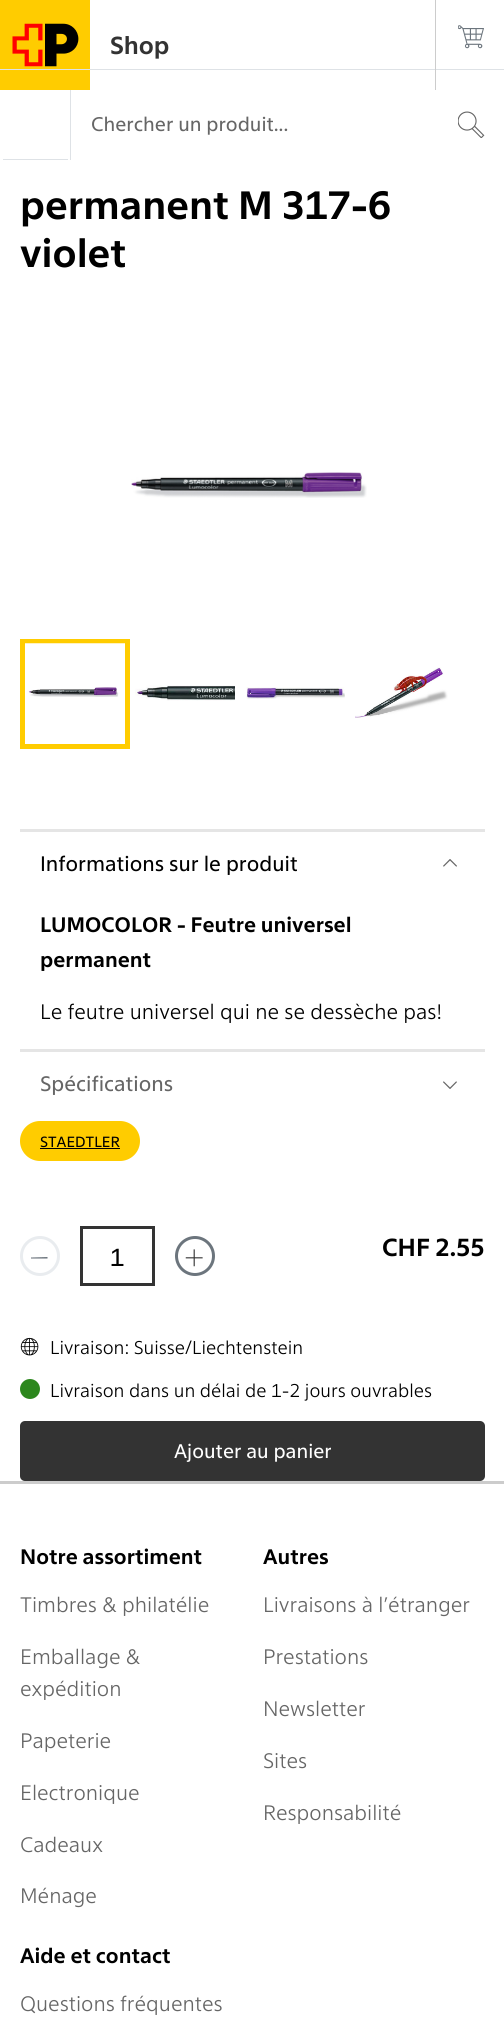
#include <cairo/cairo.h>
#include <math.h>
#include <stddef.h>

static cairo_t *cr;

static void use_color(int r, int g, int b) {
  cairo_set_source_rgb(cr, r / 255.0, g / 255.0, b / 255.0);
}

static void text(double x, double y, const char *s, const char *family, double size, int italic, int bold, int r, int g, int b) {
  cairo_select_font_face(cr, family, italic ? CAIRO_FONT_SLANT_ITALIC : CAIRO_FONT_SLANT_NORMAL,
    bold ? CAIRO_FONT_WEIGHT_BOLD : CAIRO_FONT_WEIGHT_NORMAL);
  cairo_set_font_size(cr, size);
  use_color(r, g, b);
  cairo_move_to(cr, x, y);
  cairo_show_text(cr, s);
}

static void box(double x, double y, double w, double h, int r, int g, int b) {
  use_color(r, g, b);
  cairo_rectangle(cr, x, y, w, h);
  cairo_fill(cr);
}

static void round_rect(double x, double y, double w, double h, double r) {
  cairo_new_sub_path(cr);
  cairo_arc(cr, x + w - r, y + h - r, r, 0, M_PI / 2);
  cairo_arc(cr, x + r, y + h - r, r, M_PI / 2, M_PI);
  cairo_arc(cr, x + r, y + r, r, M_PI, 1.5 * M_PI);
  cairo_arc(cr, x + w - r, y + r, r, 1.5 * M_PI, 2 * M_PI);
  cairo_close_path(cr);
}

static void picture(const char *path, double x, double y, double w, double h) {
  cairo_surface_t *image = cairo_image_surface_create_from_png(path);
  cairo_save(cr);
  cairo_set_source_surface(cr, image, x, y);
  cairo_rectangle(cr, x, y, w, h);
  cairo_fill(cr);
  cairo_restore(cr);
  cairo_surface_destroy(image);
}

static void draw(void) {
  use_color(255, 255, 255);
  cairo_paint(cr);
  picture("img_01.png", 0, 0, 90, 90);
  box(0, 69, 504, 1, 222, 226, 230);
  box(435, 0, 1, 90, 204, 204, 204);
  picture("img_02.png", 458, 25, 26, 24);
  box(70, 90, 1, 70, 222, 226, 230);
  picture("img_03.png", 458, 111, 27, 27);
  box(3, 159, 65, 1, 222, 226, 230);
  picture("img_04.png", 131, 472, 236, 26);
  cairo_rectangle(cr, 22.5, 641.5, 105, 105);
  use_color(255, 204, 0);
  cairo_set_line_width(cr, 5);
  cairo_stroke(cr);
  picture("img_05.png", 25, 643, 100, 54);
  picture("img_06.png", 135, 685, 100, 16);
  picture("img_07.png", 246, 687, 99, 12);
  picture("img_08.png", 355, 667, 93, 51);
  box(20, 829, 465, 3, 229, 229, 229);
  picture("img_09.png", 443, 859, 14, 8);
  box(20, 1049, 465, 3, 229, 229, 229);
  picture("img_10.png", 443, 1081, 14, 8);
  use_color(255, 204, 0);
  round_rect(20, 1121, 120, 40, 20);
  cairo_fill(cr);
  box(40, 1148, 80, 1, 0, 0, 0);
  cairo_arc(cr, 40, 1256, 18.5, 0, 2 * M_PI);
  use_color(233, 236, 239);
  cairo_set_line_width(cr, 3);
  cairo_stroke(cr);
  use_color(108, 117, 125);
  cairo_new_path(cr);
  cairo_move_to(cr, 31, 1257.5);
  cairo_line_to(cr, 47.5, 1257);
  cairo_line_to(cr, 47.5, 1258.5);
  cairo_line_to(cr, 31, 1258.5);
  cairo_close_path(cr);
  cairo_fill(cr);
  cairo_rectangle(cr, 81.5, 1227.5, 72, 57);
  use_color(51, 51, 51);
  cairo_stroke(cr);
  cairo_arc(cr, 195, 1256, 18.5, 0, 2 * M_PI);
  use_color(108, 117, 125);
  cairo_stroke(cr);
  picture("img_11.png", 185, 1249, 18, 18);
  picture("img_12.png", 20, 1337, 19, 19);
  use_color(44, 135, 29);
  cairo_arc(cr, 30, 1389, 10, 0, 2 * M_PI);
  cairo_fill(cr);
  use_color(51, 51, 51);
  round_rect(20, 1421, 465, 60, 5);
  cairo_fill(cr);
  box(0, 1481, 504, 3, 204, 204, 204);
  text(110, 54, "Shop", "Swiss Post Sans", 25, 0, 1, 51, 51, 51);
  text(91, 131, "Chercher un produit...", "Swiss Post Sans", 20, 0, 0, 102, 102, 102);
  text(20, 219, "permanent M 317-6", "Swiss Post Sans", 40, 0, 1, 0, 0, 0);
  text(20, 267, "violet", "Swiss Post Sans", 40, 0, 1, 0, 0, 0);
  text(40, 871, "Informations sur le produit", "Swiss Post Sans", 21.25, 0, 0, 0, 0, 0);
  text(40, 932, "LUMOCOLOR - Feutre universel", "Swiss Post Sans", 21.25, 0, 1, 0, 0, 0);
  text(40, 967, "permanent", "Swiss Post Sans", 21.25, 0, 1, 0, 0, 0);
  text(40, 1019, "Le feutre universel qui ne se dessèche pas!", "Swiss Post Sans Light", 21.25, 0, 0, 0, 0, 0);
  text(40, 1091, "Spécifications", "Swiss Post Sans", 21.25, 0, 0, 102, 102, 102);
  text(40, 1147, "STAEDTLER", "Swiss Post Sans", 15, 0, 0, 0, 0, 0);
  text(110, 1266, "1", "Swiss Post Sans", 25, 0, 0, 0, 0, 0);
  text(382, 1256, "CHF 2.55", "Swiss Post Sans", 25, 0, 1, 0, 0, 0);
  text(50, 1354, "Livraison: Suisse/Liechtenstein", "Swiss Post Sans Light", 18.75, 0, 0, 0, 0, 0);
  text(50, 1397, "Livraison dans un délai de 1-2 jours ouvrables", "Swiss Post Sans Light", 18.75, 0, 0, 0, 0, 0);
  text(174, 1458, "Ajouter au panier", "Swiss Post Sans", 20, 0, 0, 255, 255, 255);
  text(20, 1564, "Notre assortiment", "Swiss Post Sans", 21.25, 0, 1, 0, 0, 0);
  text(20, 1612, "Timbres & philatélie", "Swiss Post Sans Light", 21.25, 0, 0, 102, 102, 102);
  text(20, 1664, "Emballage &", "Swiss Post Sans Light", 21.25, 0, 0, 102, 102, 102);
  text(20, 1696, "expédition", "Swiss Post Sans Light", 21.25, 0, 0, 102, 102, 102);
  text(20, 1748, "Papeterie", "Swiss Post Sans Light", 21.25, 0, 0, 102, 102, 102);
  text(20, 1800, "Electronique", "Swiss Post Sans Light", 21.25, 0, 0, 102, 102, 102);
  text(20, 1852, "Cadeaux", "Swiss Post Sans Light", 21.25, 0, 0, 102, 102, 102);
  text(20, 1903, "Ménage", "Swiss Post Sans Light", 21.25, 0, 0, 102, 102, 102);
  text(263, 1564, "Autres", "Swiss Post Sans", 21.25, 0, 1, 0, 0, 0);
  text(263, 1612, "Livraisons à l’étranger", "Swiss Post Sans Light", 21.25, 0, 0, 102, 102, 102);
  text(263, 1664, "Prestations", "Swiss Post Sans Light", 21.25, 0, 0, 102, 102, 102);
  text(263, 1716, "Newsletter", "Swiss Post Sans Light", 21.25, 0, 0, 102, 102, 102);
  text(263, 1768, "Sites", "Swiss Post Sans Light", 21.25, 0, 0, 102, 102, 102);
  text(263, 1820, "Responsabilité", "Swiss Post Sans Light", 21.25, 0, 0, 102, 102, 102);
  text(20, 1963, "Aide et contact", "Swiss Post Sans", 21.25, 0, 1, 0, 0, 0);
  text(20, 2011, "Questions fréquentes", "Swiss Post Sans Light", 21.25, 0, 0, 102, 102, 102);
}

int main(void) {
  cairo_surface_t *surface = cairo_image_surface_create(CAIRO_FORMAT_RGB24, 504, 2027);
  cr = cairo_create(surface);
  cairo_font_options_t *options = cairo_font_options_create();
  cairo_font_options_set_hint_metrics(options, CAIRO_HINT_METRICS_OFF);
  cairo_font_options_set_hint_style(options, CAIRO_HINT_STYLE_NONE);
  cairo_set_font_options(cr, options);
  cairo_set_miter_limit(cr, 4);
  draw();
  cairo_surface_write_to_png(surface, "out.png");
  cairo_font_options_destroy(options);
  cairo_destroy(cr);
  cairo_surface_destroy(surface);
  return 0;
}
